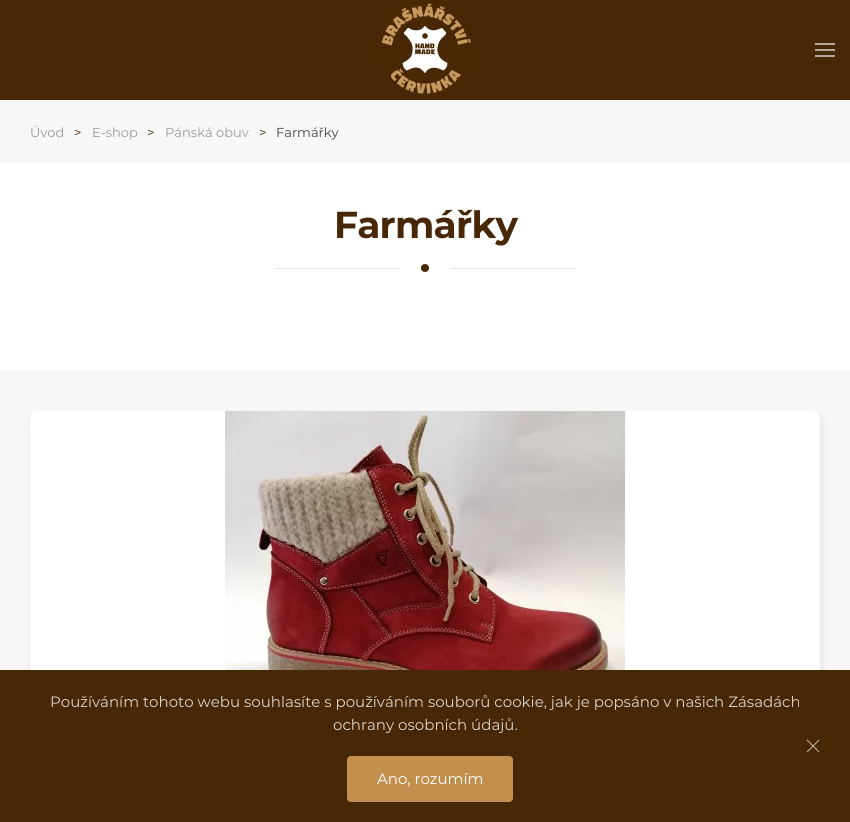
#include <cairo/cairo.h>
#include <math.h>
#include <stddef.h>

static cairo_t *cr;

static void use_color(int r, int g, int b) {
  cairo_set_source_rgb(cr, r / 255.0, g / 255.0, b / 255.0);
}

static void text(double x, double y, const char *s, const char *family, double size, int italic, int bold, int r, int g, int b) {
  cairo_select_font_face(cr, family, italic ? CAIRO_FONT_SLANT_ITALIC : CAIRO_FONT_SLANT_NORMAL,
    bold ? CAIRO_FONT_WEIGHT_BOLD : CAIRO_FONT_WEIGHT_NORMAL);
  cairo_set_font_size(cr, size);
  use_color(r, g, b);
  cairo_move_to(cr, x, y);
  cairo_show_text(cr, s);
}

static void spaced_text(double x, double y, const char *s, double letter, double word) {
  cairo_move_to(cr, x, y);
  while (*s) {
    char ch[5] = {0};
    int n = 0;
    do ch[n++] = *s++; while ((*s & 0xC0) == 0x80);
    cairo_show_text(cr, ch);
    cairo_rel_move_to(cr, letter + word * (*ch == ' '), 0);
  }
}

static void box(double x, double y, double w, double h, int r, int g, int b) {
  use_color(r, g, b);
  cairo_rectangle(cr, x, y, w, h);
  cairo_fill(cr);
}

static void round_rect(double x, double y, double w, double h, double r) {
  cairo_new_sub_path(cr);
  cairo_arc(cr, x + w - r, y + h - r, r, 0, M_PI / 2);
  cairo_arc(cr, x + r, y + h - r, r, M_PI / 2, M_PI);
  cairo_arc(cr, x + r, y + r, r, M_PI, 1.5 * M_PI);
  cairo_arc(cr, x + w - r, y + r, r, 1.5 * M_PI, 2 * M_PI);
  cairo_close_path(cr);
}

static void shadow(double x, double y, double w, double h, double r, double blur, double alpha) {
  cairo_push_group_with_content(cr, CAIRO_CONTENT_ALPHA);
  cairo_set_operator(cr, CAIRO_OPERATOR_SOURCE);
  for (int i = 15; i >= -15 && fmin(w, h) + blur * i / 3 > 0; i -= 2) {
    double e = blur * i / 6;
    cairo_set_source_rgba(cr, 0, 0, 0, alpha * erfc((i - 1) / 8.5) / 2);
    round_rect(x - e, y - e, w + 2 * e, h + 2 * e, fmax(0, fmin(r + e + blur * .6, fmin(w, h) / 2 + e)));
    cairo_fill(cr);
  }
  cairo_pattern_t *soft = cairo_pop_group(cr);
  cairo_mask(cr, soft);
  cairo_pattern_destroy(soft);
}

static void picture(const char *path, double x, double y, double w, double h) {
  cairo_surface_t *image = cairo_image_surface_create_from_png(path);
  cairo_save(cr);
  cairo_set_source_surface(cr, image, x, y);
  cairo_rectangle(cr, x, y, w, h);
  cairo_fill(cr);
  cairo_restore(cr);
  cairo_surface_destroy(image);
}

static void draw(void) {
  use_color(255, 255, 255);
  cairo_paint(cr);
  box(0, 0, 850, 100, 72, 39, 6);
  picture("img_01.png", 377, 2, 96, 96);
  box(815, 43, 20, 2, 182, 169, 155);
  box(815, 49, 20, 2, 182, 169, 155);
  box(815, 55, 20, 2, 182, 169, 155);
  box(0, 100, 850, 63, 247, 247, 247);
  use_color(72, 39, 6);
  cairo_arc(cr, 425, 268, 4, 0, 2 * M_PI);
  cairo_fill(cr);
  box(275, 268, 125, 1, 230, 230, 230);
  box(450, 268, 125, 1, 230, 230, 230);
  box(0, 371, 850, 299, 247, 247, 247);
  use_color(0, 0, 0);
  shadow(32, 416, 790, 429, 8, 5, 0.08);
  use_color(255, 255, 255);
  round_rect(30, 411, 790, 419, 8);
  cairo_fill(cr);
  picture("img_02.png", 225, 411, 400, 259);
  box(0, 670, 850, 152, 72, 39, 6);
  cairo_new_path(cr);
  cairo_move_to(cr, 807, 740);
  cairo_line_to(cr, 819, 752);
  use_color(182, 169, 155);
  cairo_set_line_width(cr, 1.1);
  cairo_stroke(cr);
  cairo_new_path(cr);
  cairo_move_to(cr, 819, 740);
  cairo_line_to(cr, 807, 752);
  cairo_set_source_rgba(cr, 1, 1, 1, 0.6);
  cairo_stroke(cr);
  use_color(194, 144, 76);
  round_rect(347, 756, 166, 46, 4);
  cairo_fill(cr);
  text(30, 137, "Úvod", "Montserrat", 13, 0, 0, 153, 153, 153);
  text(74, 137, ">", "Montserrat", 13, 0, 0, 72, 39, 6);
  text(92, 137, "E-shop", "Montserrat", 13, 0, 0, 153, 153, 153);
  text(147, 137, ">", "Montserrat", 13, 0, 0, 72, 39, 6);
  text(165, 137, "Pánská obuv", "Montserrat", 13, 0, 0, 153, 153, 153);
  text(259, 137, ">", "Montserrat", 13, 0, 0, 72, 39, 6);
  text(276, 137, "Farmářky", "Montserrat", 13, 0, 0, 68, 68, 68);
  cairo_select_font_face(cr, "Montserrat", CAIRO_FONT_SLANT_NORMAL, CAIRO_FONT_WEIGHT_BOLD);
  cairo_set_font_size(cr, 37.5);
  use_color(72, 39, 6);
  spaced_text(334, 238, "Farmářky", -0.75, 0);
  text(50, 707, "Používáním tohoto webu souhlasíte s používáním souborů cookie, jak je popsáno v našich Zásadách", "Montserrat", 15, 0, 0, 218, 212, 205);
  text(333, 730, "ochrany osobních údajů.", "Montserrat", 15, 0, 0, 218, 212, 205);
  text(377, 784, "Ano, rozumím", "Montserrat", 15, 0, 0, 255, 255, 255);
}

int main(void) {
  cairo_surface_t *surface = cairo_image_surface_create(CAIRO_FORMAT_RGB24, 850, 822);
  cr = cairo_create(surface);
  cairo_font_options_t *options = cairo_font_options_create();
  cairo_font_options_set_hint_metrics(options, CAIRO_HINT_METRICS_OFF);
  cairo_font_options_set_hint_style(options, CAIRO_HINT_STYLE_NONE);
  cairo_set_font_options(cr, options);
  cairo_set_miter_limit(cr, 4);
  draw();
  cairo_surface_write_to_png(surface, "out.png");
  cairo_font_options_destroy(options);
  cairo_destroy(cr);
  cairo_surface_destroy(surface);
  return 0;
}
